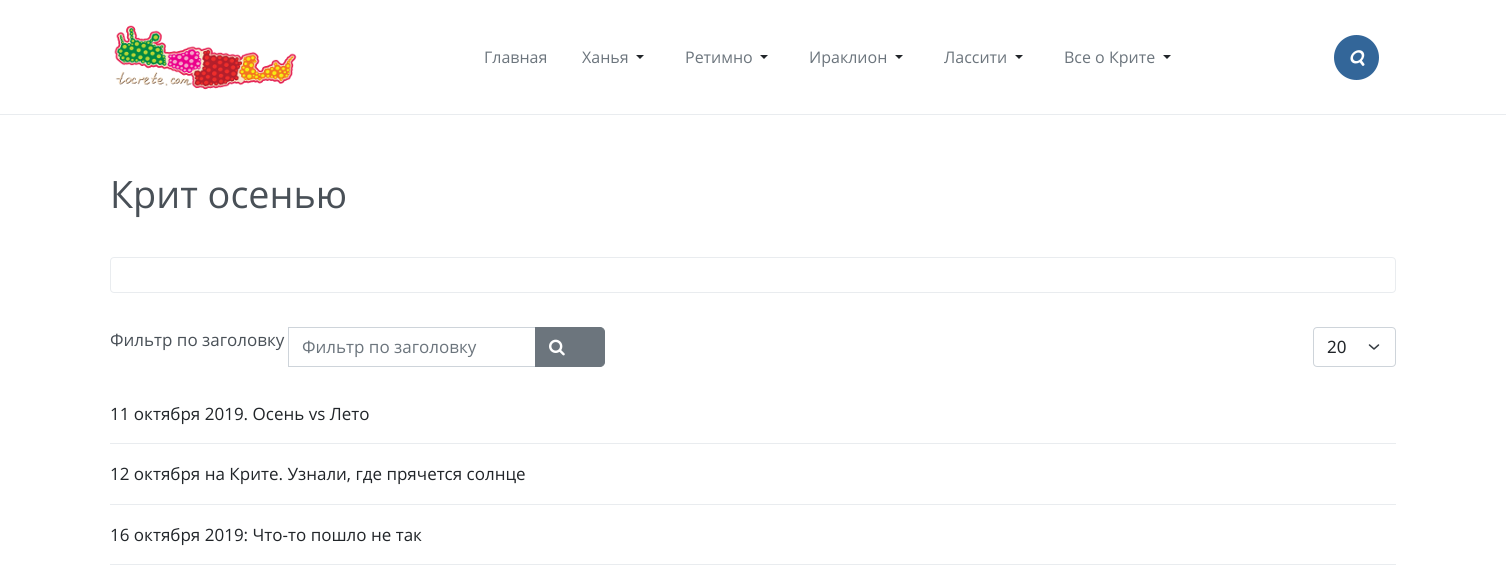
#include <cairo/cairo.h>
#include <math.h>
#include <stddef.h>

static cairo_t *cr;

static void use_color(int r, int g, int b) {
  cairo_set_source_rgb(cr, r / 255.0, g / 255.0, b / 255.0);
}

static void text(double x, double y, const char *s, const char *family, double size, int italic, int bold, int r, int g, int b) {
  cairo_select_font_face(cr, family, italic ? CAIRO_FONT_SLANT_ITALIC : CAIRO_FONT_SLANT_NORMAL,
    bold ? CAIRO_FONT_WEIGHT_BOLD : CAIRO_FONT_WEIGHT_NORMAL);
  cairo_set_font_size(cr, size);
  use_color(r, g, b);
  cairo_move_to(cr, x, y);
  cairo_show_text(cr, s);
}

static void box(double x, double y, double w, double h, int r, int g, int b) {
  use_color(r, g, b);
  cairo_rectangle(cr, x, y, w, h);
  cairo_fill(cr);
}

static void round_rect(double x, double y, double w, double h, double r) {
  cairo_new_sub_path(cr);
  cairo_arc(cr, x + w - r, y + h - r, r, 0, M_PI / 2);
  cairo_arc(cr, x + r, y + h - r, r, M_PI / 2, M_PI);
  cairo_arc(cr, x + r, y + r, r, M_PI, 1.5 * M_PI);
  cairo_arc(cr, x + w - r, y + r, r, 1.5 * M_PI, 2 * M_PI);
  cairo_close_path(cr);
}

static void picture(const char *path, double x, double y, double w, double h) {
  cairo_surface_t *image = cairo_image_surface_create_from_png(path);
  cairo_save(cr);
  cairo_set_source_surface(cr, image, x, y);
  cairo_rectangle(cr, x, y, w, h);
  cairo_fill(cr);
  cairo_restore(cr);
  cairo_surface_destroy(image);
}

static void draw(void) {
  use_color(255, 255, 255);
  cairo_paint(cr);
  box(0, 114, 1506, 1, 233, 236, 239);
  picture("img_01.png", 114, 25, 183, 65);
  use_color(33, 37, 41);
  cairo_new_path(cr);
  cairo_move_to(cr, 636, 55);
  cairo_line_to(cr, 644, 55);
  cairo_line_to(cr, 640, 59);
  cairo_close_path(cr);
  cairo_fill(cr);
  cairo_new_path(cr);
  cairo_move_to(cr, 760, 55);
  cairo_line_to(cr, 768, 55);
  cairo_line_to(cr, 764, 59);
  cairo_close_path(cr);
  cairo_fill(cr);
  cairo_new_path(cr);
  cairo_move_to(cr, 895, 55);
  cairo_line_to(cr, 903, 55);
  cairo_line_to(cr, 899, 59);
  cairo_close_path(cr);
  cairo_fill(cr);
  cairo_new_path(cr);
  cairo_move_to(cr, 1015, 55);
  cairo_line_to(cr, 1023, 55);
  cairo_line_to(cr, 1019, 59);
  cairo_close_path(cr);
  cairo_fill(cr);
  cairo_new_path(cr);
  cairo_move_to(cr, 1163, 55);
  cairo_line_to(cr, 1171, 55);
  cairo_line_to(cr, 1167, 59);
  cairo_close_path(cr);
  cairo_fill(cr);
  use_color(51, 102, 153);
  cairo_arc(cr, 1356.5, 57.5, 22.5, 0, 2 * M_PI);
  cairo_fill(cr);
  picture("img_02.png", 1350, 50, 15, 16);
  round_rect(110.5, 257.5, 1285, 35, 3.5);
  use_color(233, 236, 239);
  cairo_set_line_width(cr, 1);
  cairo_stroke(cr);
  cairo_rectangle(cr, 288.5, 327.5, 247, 39);
  use_color(206, 212, 218);
  cairo_stroke(cr);
  box(535, 327, 43, 40, 108, 117, 125);
  picture("img_03.png", 549, 339, 16, 17);
  cairo_new_path(cr);
  cairo_move_to(cr, 578.5, 327.5);
  cairo_line_to(cr, 600, 327.5);
  cairo_curve_to(cr, 602.5, 327.5, 604.5, 329.5, 604.5, 332);
  cairo_line_to(cr, 604.5, 362);
  cairo_curve_to(cr, 604.5, 364.5, 602.5, 366.5, 600, 366.5);
  cairo_line_to(cr, 578.5, 366.5);
  cairo_close_path(cr);
  cairo_fill_preserve(cr);
  cairo_stroke(cr);
  cairo_new_path(cr);
  cairo_move_to(cr, 1369.5, 345);
  cairo_line_to(cr, 1374, 349);
  cairo_line_to(cr, 1378.5, 345);
  use_color(52, 58, 64);
  cairo_set_line_width(cr, 1.5);
  cairo_set_line_cap(cr, CAIRO_LINE_CAP_ROUND);
  cairo_set_line_join(cr, CAIRO_LINE_JOIN_ROUND);
  cairo_stroke(cr);
  round_rect(1313.5, 327.5, 82, 39, 3.5);
  use_color(206, 212, 218);
  cairo_set_line_width(cr, 1);
  cairo_set_line_cap(cr, CAIRO_LINE_CAP_BUTT);
  cairo_set_line_join(cr, CAIRO_LINE_JOIN_MITER);
  cairo_stroke(cr);
  box(110, 443, 1286, 1, 233, 236, 239);
  box(110, 504, 1286, 1, 233, 236, 239);
  box(110, 564, 1286, 1, 233, 236, 239);
  text(484, 63, "Главная", "Open Sans", 16, 0, 0, 108, 117, 125);
  text(582, 63, "Ханья", "Open Sans", 16, 0, 0, 108, 117, 125);
  text(685, 63, "Ретимно", "Open Sans", 16, 0, 0, 108, 117, 125);
  text(809, 63, "Ираклион", "Open Sans", 16, 0, 0, 108, 117, 125);
  text(944, 63, "Лассити", "Open Sans", 16, 0, 0, 108, 117, 125);
  text(1064, 63, "Все о Крите", "Open Sans", 16, 0, 0, 108, 117, 125);
  text(110, 208, "Крит осенью", "Open Sans", 37.75, 0, 0, 73, 80, 87);
  text(110, 346, "Фильтр по заголовку", "Open Sans", 17, 0, 0, 73, 80, 87);
  text(302, 353, "Фильтр по заголовку", "Open Sans", 17, 0, 0, 108, 117, 125);
  text(1327, 353, "20", "Noto Sans", 17, 0, 0, 33, 37, 41);
  text(110, 420, "11 октября 2019. Осень vs Лето", "Open Sans", 17, 0, 0, 33, 37, 41);
  text(110, 480, "12 октября на Крите. Узнали, где прячется солнце", "Open Sans", 17, 0, 0, 33, 37, 41);
  text(110, 541, "16 октября 2019: Что-то пошло не так", "Open Sans", 17, 0, 0, 33, 37, 41);
}

int main(void) {
  cairo_surface_t *surface = cairo_image_surface_create(CAIRO_FORMAT_RGB24, 1506, 582);
  cr = cairo_create(surface);
  cairo_font_options_t *options = cairo_font_options_create();
  cairo_font_options_set_hint_metrics(options, CAIRO_HINT_METRICS_OFF);
  cairo_font_options_set_hint_style(options, CAIRO_HINT_STYLE_NONE);
  cairo_set_font_options(cr, options);
  cairo_set_miter_limit(cr, 4);
  draw();
  cairo_surface_write_to_png(surface, "out.png");
  cairo_font_options_destroy(options);
  cairo_destroy(cr);
  cairo_surface_destroy(surface);
  return 0;
}
